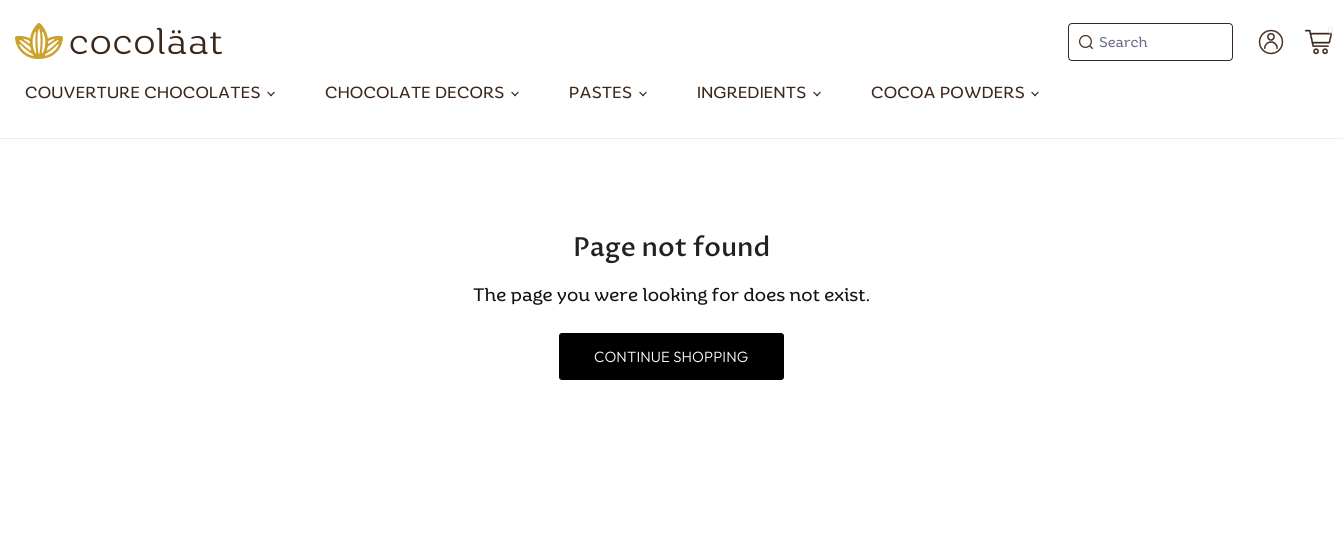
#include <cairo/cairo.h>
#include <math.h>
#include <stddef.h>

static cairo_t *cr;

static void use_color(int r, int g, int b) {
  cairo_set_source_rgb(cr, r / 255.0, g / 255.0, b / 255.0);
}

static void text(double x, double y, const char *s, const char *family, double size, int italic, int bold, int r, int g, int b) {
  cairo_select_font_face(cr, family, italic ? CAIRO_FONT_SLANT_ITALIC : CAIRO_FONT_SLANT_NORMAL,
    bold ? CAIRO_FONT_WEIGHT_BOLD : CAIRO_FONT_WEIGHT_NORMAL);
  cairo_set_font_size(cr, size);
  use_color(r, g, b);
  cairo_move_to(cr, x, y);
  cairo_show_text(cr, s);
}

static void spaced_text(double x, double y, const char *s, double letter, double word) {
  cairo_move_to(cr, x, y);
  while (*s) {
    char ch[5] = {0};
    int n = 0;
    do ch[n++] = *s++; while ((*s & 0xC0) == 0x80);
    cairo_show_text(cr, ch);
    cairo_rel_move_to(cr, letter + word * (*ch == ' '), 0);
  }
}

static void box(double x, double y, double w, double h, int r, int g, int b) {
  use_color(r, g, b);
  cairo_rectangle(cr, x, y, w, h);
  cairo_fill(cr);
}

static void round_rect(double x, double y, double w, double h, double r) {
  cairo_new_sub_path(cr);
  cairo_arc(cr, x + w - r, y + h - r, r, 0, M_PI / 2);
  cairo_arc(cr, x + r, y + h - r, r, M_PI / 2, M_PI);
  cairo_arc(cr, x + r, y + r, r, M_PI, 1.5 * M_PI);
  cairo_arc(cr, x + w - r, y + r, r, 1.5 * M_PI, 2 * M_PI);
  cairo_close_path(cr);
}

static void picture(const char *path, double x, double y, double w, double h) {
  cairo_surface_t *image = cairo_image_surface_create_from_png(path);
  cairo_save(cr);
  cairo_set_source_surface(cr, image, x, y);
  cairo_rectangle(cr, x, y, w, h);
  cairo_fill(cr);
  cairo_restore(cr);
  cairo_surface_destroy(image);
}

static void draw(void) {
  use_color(255, 255, 255);
  cairo_paint(cr);
  box(0, 138, 1343, 1, 238, 238, 238);
  picture("img_01.png", 15, 23, 207, 36);
  round_rect(1068.5, 23.5, 164, 37, 3.5);
  use_color(60, 39, 26);
  cairo_set_line_width(cr, 1);
  cairo_stroke(cr);
  picture("img_02.png", 1079, 35, 14, 14);
  picture("img_03.png", 1258, 29, 26, 26);
  picture("img_04.png", 1304, 29, 29, 26);
  picture("img_05.png", 267, 91, 8, 6);
  picture("img_05.png", 511, 91, 8, 6);
  picture("img_05.png", 639, 91, 8, 6);
  picture("img_05.png", 813, 91, 8, 6);
  picture("img_05.png", 1031, 91, 8, 6);
  use_color(0, 0, 0);
  round_rect(559.5, 333.5, 224, 46, 2.5);
  cairo_fill_preserve(cr);
  cairo_stroke(cr);
  text(1099, 47, "Search", "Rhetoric", 14, 0, 0, 108, 108, 141);
  text(1328, 34, "0", "Source Sans Pro Light", 11, 0, 0, 218, 214, 212);
  cairo_select_font_face(cr, "Rhetoric", CAIRO_FONT_SLANT_NORMAL, CAIRO_FONT_WEIGHT_NORMAL);
  cairo_set_font_size(cr, 16);
  use_color(60, 39, 26);
  spaced_text(25, 98, "COUVERTURE CHOCOLATES", 0.2, 0);
  spaced_text(325, 98, "CHOCOLATE DECORS", 0.2, 0);
  spaced_text(569, 98, "PASTES", 0.2, 0);
  spaced_text(697, 98, "INGREDIENTS", 0.2, 0);
  spaced_text(871, 98, "COCOA POWDERS", 0.2, 0);
  text(573, 256, "Page not found", "Proza Libre Medium", 26.25, 0, 0, 33, 33, 33);
  text(473, 301, "The page you were looking for does not exist.", "Rhetoric", 18, 0, 0, 17, 17, 17);
  cairo_select_font_face(cr, "Outfit Light", CAIRO_FONT_SLANT_NORMAL, CAIRO_FONT_WEIGHT_NORMAL);
  cairo_set_font_size(cr, 14.9);
  use_color(255, 255, 255);
  spaced_text(594, 362, "CONTINUE SHOPPING", 0.1, 0);
}

int main(void) {
  cairo_surface_t *surface = cairo_image_surface_create(CAIRO_FORMAT_RGB24, 1343, 545);
  cr = cairo_create(surface);
  cairo_font_options_t *options = cairo_font_options_create();
  cairo_font_options_set_hint_metrics(options, CAIRO_HINT_METRICS_OFF);
  cairo_font_options_set_hint_style(options, CAIRO_HINT_STYLE_NONE);
  cairo_set_font_options(cr, options);
  cairo_set_miter_limit(cr, 4);
  draw();
  cairo_surface_write_to_png(surface, "out.png");
  cairo_font_options_destroy(options);
  cairo_destroy(cr);
  cairo_surface_destroy(surface);
  return 0;
}
